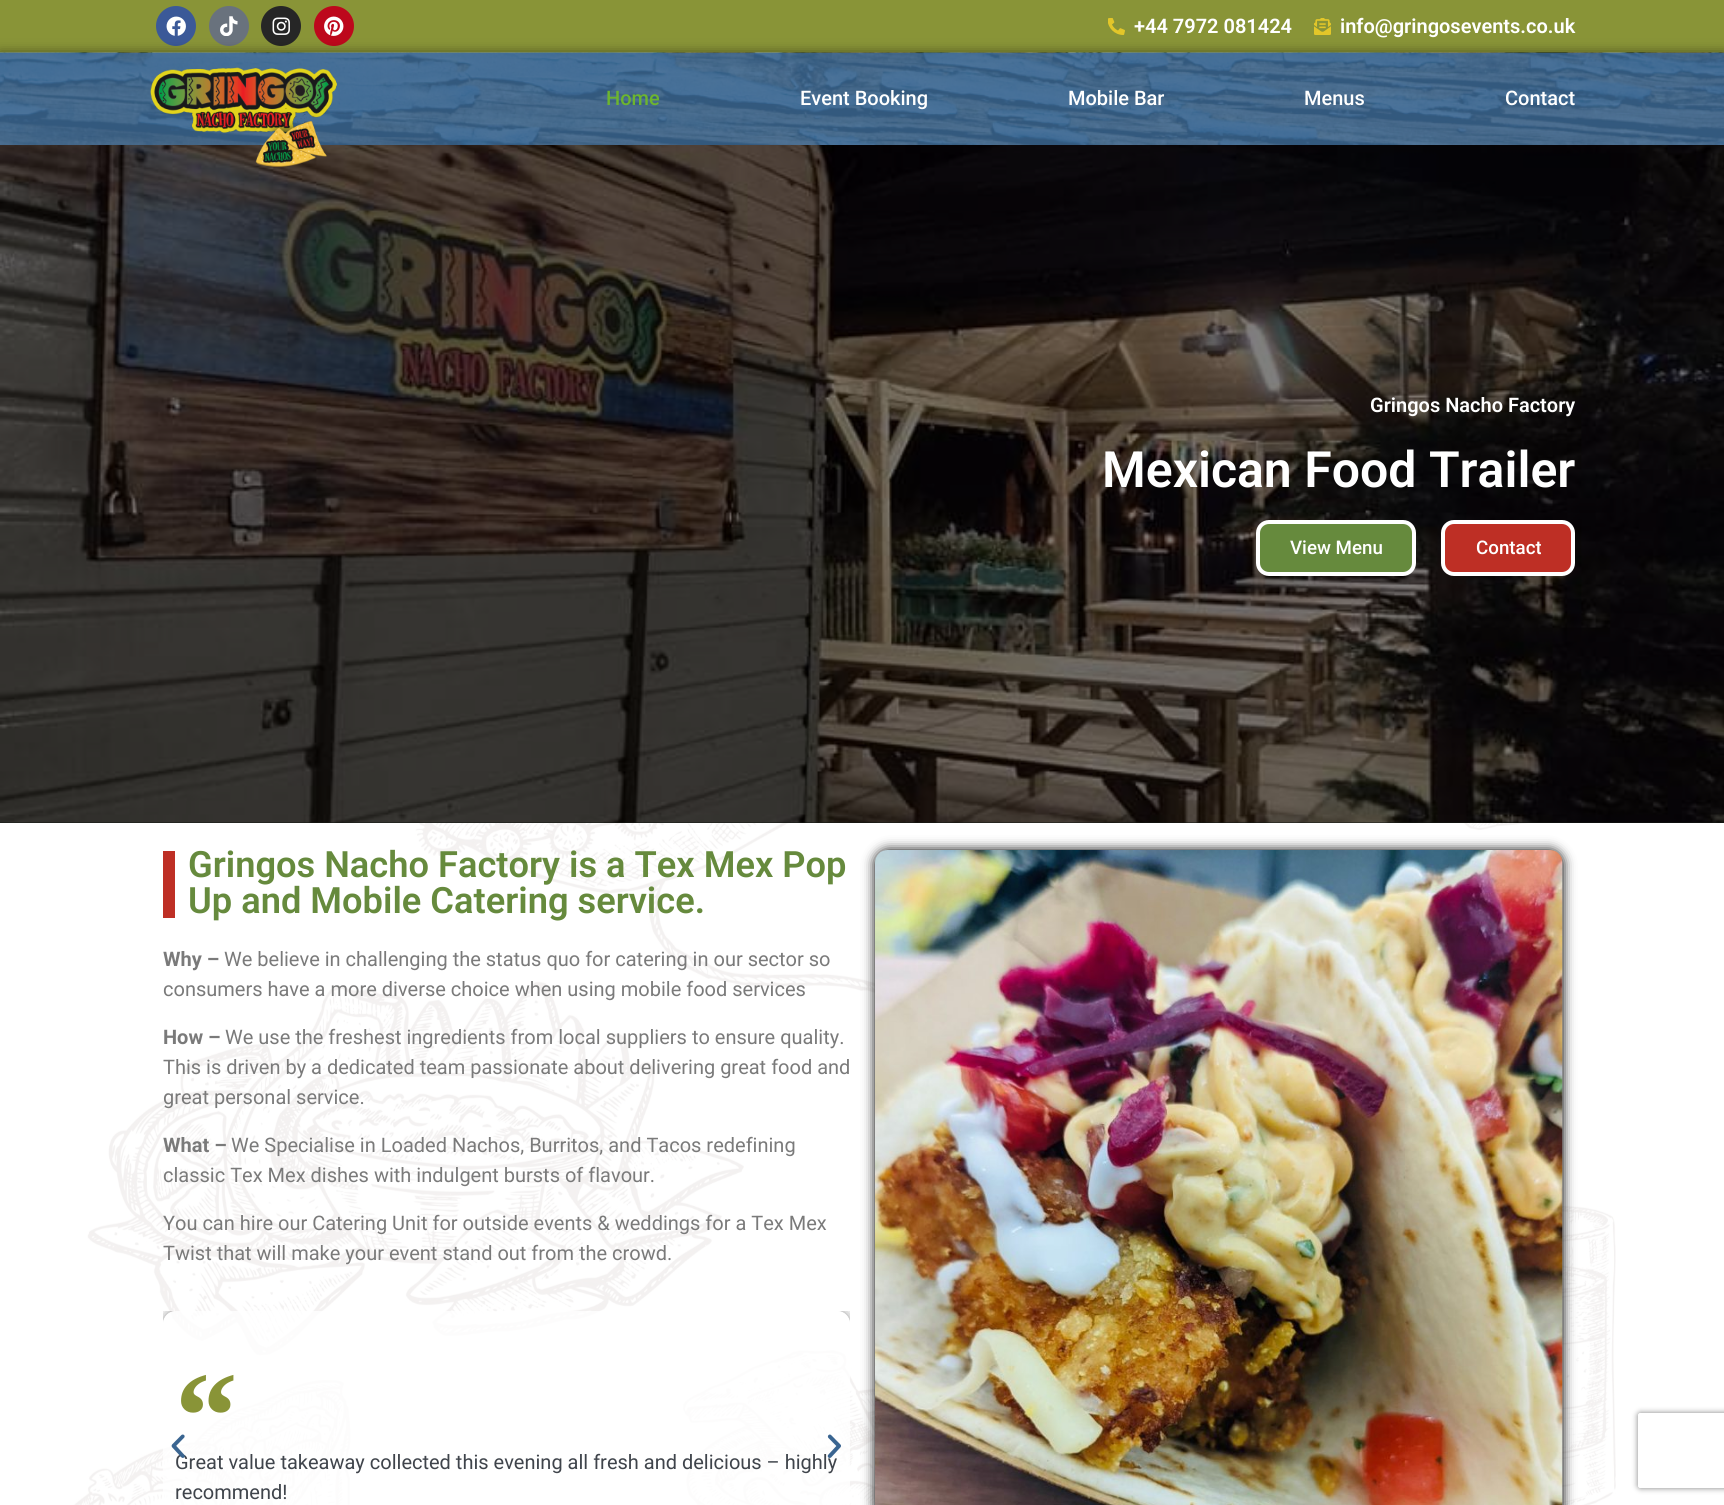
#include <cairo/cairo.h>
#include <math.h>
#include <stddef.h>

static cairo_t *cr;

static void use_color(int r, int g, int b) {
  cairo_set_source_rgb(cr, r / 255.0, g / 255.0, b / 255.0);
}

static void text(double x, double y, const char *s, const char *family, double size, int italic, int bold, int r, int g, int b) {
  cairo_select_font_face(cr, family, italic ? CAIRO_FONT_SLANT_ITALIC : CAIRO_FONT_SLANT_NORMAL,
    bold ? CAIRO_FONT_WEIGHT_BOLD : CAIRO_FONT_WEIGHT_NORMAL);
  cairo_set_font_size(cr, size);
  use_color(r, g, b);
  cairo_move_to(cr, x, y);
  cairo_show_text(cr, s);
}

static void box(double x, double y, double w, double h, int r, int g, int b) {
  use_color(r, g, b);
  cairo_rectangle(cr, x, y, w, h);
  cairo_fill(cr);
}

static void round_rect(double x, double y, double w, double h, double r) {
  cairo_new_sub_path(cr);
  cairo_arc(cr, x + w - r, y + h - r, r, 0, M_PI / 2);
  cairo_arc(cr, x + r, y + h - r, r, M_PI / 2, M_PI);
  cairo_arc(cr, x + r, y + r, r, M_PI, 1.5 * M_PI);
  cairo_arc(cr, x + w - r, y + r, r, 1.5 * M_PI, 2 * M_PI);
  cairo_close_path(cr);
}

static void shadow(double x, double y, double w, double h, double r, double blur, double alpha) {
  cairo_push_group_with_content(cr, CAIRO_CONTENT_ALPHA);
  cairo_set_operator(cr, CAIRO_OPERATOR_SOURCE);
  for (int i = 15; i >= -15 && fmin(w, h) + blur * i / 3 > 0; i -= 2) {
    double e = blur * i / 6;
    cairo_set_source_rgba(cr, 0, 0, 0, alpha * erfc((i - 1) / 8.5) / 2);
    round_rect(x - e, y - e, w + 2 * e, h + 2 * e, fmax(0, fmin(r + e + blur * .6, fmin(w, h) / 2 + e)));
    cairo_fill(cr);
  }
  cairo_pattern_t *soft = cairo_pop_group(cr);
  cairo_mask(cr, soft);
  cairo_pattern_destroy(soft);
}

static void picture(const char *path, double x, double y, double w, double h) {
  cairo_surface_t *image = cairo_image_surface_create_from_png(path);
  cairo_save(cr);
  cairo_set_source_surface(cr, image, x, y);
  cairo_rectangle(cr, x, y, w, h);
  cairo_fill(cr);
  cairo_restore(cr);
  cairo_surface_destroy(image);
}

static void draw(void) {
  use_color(255, 255, 255);
  cairo_paint(cr);
  picture("img_01.png", 0, 823, 1724, 682);
  box(0, 0, 1724, 53, 137, 148, 55);
  use_color(59, 89, 152);
  cairo_arc(cr, 176, 26, 20, 0, 2 * M_PI);
  cairo_fill(cr);
  picture("img_02.png", 166, 16, 20, 20);
  use_color(105, 114, 125);
  cairo_arc(cr, 229, 26, 20, 0, 2 * M_PI);
  cairo_fill(cr);
  picture("img_03.png", 220, 16, 18, 20);
  use_color(38, 38, 38);
  cairo_arc(cr, 281, 26, 20, 0, 2 * M_PI);
  cairo_fill(cr);
  picture("img_04.png", 272, 17, 18, 18);
  use_color(189, 8, 28);
  cairo_arc(cr, 334, 26, 20, 0, 2 * M_PI);
  cairo_fill(cr);
  picture("img_05.png", 324, 16, 20, 20);
  picture("img_06.png", 1108, 18, 17, 17);
  picture("img_07.png", 1314, 18, 17, 17);
  use_color(0, 0, 0);
  shadow(0, 53, 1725, 92, 0, 6, 0.5);
  picture("img_08.png", 0, 52, 1724, 93);
  box(0, 822, 1724, 1, 40, 50, 41);
  picture("img_10.png", 0, 145, 1724, 678);
  cairo_set_source_rgba(cr, 0, 0, 0, 0.5);
  cairo_rectangle(cr, 0, 145, 1724, 678);
  cairo_fill(cr);
  picture("img_09.png", 150, 67, 187, 100);
  use_color(102, 138, 61);
  round_rect(1258, 522, 156, 52, 11);
  cairo_fill_preserve(cr);
  use_color(255, 255, 255);
  cairo_set_line_width(cr, 4);
  cairo_stroke(cr);
  use_color(190, 47, 37);
  round_rect(1443, 522, 130, 52, 11);
  cairo_fill_preserve(cr);
  use_color(255, 255, 255);
  cairo_stroke(cr);
  box(163, 851, 12, 67, 190, 47, 37);
  cairo_save(cr);
  cairo_rectangle(cr, 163, 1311, 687, 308);
  cairo_clip(cr);
  cairo_set_fill_rule(cr, CAIRO_FILL_RULE_EVEN_ODD);
  cairo_new_path(cr);
  cairo_move_to(cr, 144, 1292);
  cairo_line_to(cr, 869, 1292);
  cairo_line_to(cr, 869, 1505);
  cairo_line_to(cr, 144, 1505);
  cairo_close_path(cr);
  cairo_move_to(cr, 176, 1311);
  cairo_line_to(cr, 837, 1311);
  cairo_curve_to(cr, 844, 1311, 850, 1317, 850, 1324);
  cairo_line_to(cr, 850, 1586);
  cairo_curve_to(cr, 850, 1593, 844, 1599, 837, 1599);
  cairo_line_to(cr, 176, 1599);
  cairo_curve_to(cr, 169, 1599, 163, 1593, 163, 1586);
  cairo_line_to(cr, 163, 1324);
  cairo_curve_to(cr, 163, 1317, 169, 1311, 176, 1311);
  cairo_close_path(cr);
  cairo_clip(cr);
  use_color(0, 0, 0);
  shadow(163, 1311, 687, 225, 13, 6, 0.5);
  cairo_restore(cr);
  cairo_set_source_rgba(cr, 1, 1, 1, 0.78);
  round_rect(163, 1311, 687, 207, 13);
  cairo_fill(cr);
  use_color(0, 0, 0);
  shadow(875, 850, 688, 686, 13, 6, 1);
  picture("img_13.png", 875, 850, 688, 655);
  cairo_save(cr);
  cairo_set_fill_rule(cr, CAIRO_FILL_RULE_EVEN_ODD);
  cairo_new_path(cr);
  cairo_move_to(cr, 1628, 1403);
  cairo_line_to(cr, 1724, 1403);
  cairo_line_to(cr, 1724, 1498);
  cairo_line_to(cr, 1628, 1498);
  cairo_close_path(cr);
  cairo_move_to(cr, 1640.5, 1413);
  cairo_line_to(cr, 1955.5, 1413);
  cairo_curve_to(cr, 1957, 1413, 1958, 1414, 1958, 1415.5);
  cairo_line_to(cr, 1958, 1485.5);
  cairo_curve_to(cr, 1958, 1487, 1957, 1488, 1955.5, 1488);
  cairo_line_to(cr, 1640.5, 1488);
  cairo_curve_to(cr, 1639, 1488, 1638, 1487, 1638, 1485.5);
  cairo_line_to(cr, 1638, 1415.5);
  cairo_curve_to(cr, 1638, 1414, 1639, 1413, 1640.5, 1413);
  cairo_close_path(cr);
  cairo_clip(cr);
  use_color(128, 128, 128);
  shadow(1638, 1413, 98, 75, 2.5, 3, 1);
  cairo_restore(cr);
  text(1134, 33, "+44 7972 081424", "Roboto SemiBold", 20, 0, 0, 255, 255, 255);
  text(1340, 33, "info@gringosevents.co.uk", "Roboto SemiBold", 20, 0, 0, 255, 255, 255);
  text(606, 105, "Home", "Roboto Medium", 20, 0, 0, 109, 181, 46);
  text(800, 105, "Event Booking", "Roboto Medium", 20, 0, 0, 255, 255, 255);
  text(1068, 105, "Mobile Bar", "Roboto Medium", 20, 0, 0, 255, 255, 255);
  text(1304, 105, "Menus", "Roboto Medium", 20, 0, 0, 255, 255, 255);
  text(1505, 105, "Contact", "Roboto Medium", 20, 0, 0, 255, 255, 255);
  text(1370, 412, "Gringos Nacho Factory", "Roboto SemiBold", 20, 0, 0, 255, 255, 255);
  text(1102, 487, "Mexican Food Trailer", "Roboto SemiBold", 50, 0, 0, 255, 255, 255);
  text(1290, 554, "View Menu", "Roboto Medium", 18.75, 0, 0, 255, 255, 255);
  text(1476, 554, "Contact", "Roboto Medium", 18.75, 0, 0, 255, 255, 255);
  text(188, 877, "Gringos Nacho Factory is a Tex Mex Pop", "Roboto SemiBold", 36.25, 0, 0, 102, 138, 61);
  text(188, 913, "Up and Mobile Catering service.", "Roboto SemiBold", 36.25, 0, 0, 102, 138, 61);
  text(163, 966, "Why –", "Roboto", 20, 0, 1, 122, 122, 122);
  text(224, 966, "We believe in challenging the status quo for catering in our sector so", "Roboto", 20, 0, 0, 122, 122, 122);
  text(163, 996, "consumers have a more diverse choice when using mobile food services", "Roboto", 20, 0, 0, 122, 122, 122);
  text(163, 1044, "How –", "Roboto", 20, 0, 1, 122, 122, 122);
  text(225, 1044, "We use the freshest ingredients from local suppliers to ensure quality.", "Roboto", 20, 0, 0, 122, 122, 122);
  text(163, 1074, "This is driven by a dedicated team passionate about delivering great food and", "Roboto", 20, 0, 0, 122, 122, 122);
  text(163, 1104, "great personal service.", "Roboto", 20, 0, 0, 122, 122, 122);
  text(163, 1152, "What –", "Roboto", 20, 0, 1, 122, 122, 122);
  text(231, 1152, "We Specialise in Loaded Nachos, Burritos, and Tacos redefining", "Roboto", 20, 0, 0, 122, 122, 122);
  text(163, 1182, "classic Tex Mex dishes with indulgent bursts of flavour.", "Roboto", 20, 0, 0, 122, 122, 122);
  text(163, 1230, "You can hire our Catering Unit for outside events & weddings for a Tex Mex", "Roboto", 20, 0, 0, 122, 122, 122);
  text(163, 1260, "Twist that will make your event stand out from the crowd.", "Roboto", 20, 0, 0, 122, 122, 122);
  text(175, 1458, "“", "Liberation Serif", 125, 0, 1, 137, 148, 55);
  text(175, 1469, "Great value takeaway collected this evening all fresh and delicious – highly", "Roboto", 20, 0, 0, 63, 68, 75);
  text(175, 1499, "recommend!", "Roboto", 20, 0, 0, 63, 68, 75);
  picture("img_11.png", 171, 1434, 14, 24);
  picture("img_12.png", 827, 1434, 14, 24);
}

int main(void) {
  cairo_surface_t *surface = cairo_image_surface_create(CAIRO_FORMAT_RGB24, 1724, 1505);
  cr = cairo_create(surface);
  cairo_font_options_t *options = cairo_font_options_create();
  cairo_font_options_set_hint_metrics(options, CAIRO_HINT_METRICS_OFF);
  cairo_font_options_set_hint_style(options, CAIRO_HINT_STYLE_NONE);
  cairo_set_font_options(cr, options);
  cairo_set_miter_limit(cr, 4);
  draw();
  cairo_surface_write_to_png(surface, "out.png");
  cairo_font_options_destroy(options);
  cairo_destroy(cr);
  cairo_surface_destroy(surface);
  return 0;
}
